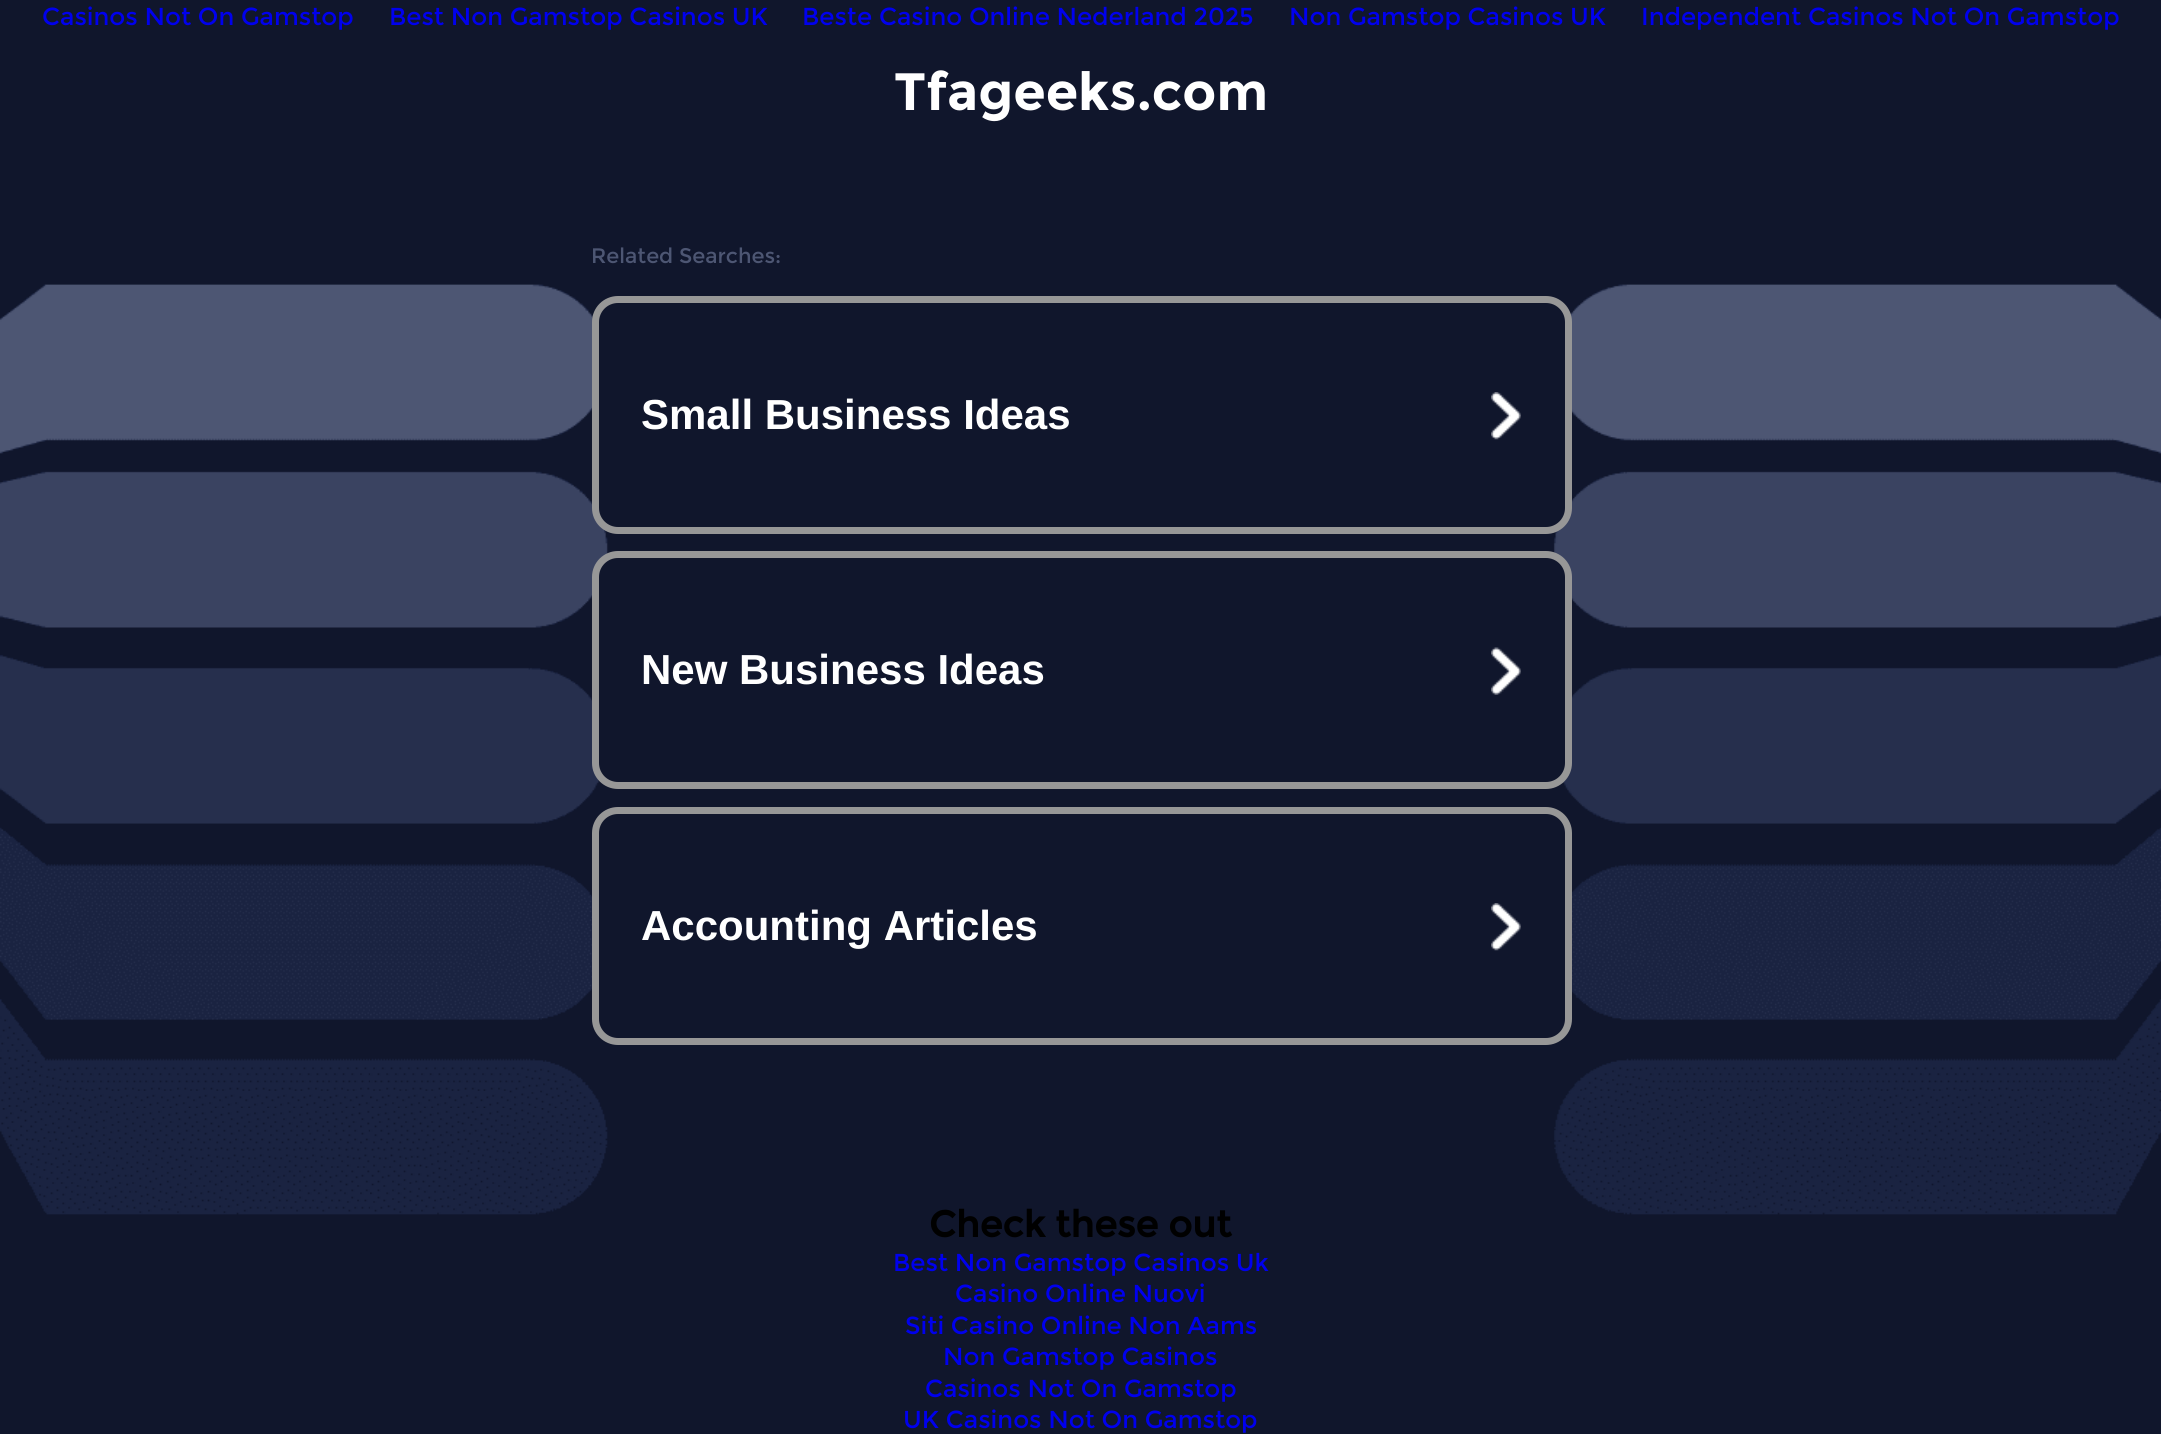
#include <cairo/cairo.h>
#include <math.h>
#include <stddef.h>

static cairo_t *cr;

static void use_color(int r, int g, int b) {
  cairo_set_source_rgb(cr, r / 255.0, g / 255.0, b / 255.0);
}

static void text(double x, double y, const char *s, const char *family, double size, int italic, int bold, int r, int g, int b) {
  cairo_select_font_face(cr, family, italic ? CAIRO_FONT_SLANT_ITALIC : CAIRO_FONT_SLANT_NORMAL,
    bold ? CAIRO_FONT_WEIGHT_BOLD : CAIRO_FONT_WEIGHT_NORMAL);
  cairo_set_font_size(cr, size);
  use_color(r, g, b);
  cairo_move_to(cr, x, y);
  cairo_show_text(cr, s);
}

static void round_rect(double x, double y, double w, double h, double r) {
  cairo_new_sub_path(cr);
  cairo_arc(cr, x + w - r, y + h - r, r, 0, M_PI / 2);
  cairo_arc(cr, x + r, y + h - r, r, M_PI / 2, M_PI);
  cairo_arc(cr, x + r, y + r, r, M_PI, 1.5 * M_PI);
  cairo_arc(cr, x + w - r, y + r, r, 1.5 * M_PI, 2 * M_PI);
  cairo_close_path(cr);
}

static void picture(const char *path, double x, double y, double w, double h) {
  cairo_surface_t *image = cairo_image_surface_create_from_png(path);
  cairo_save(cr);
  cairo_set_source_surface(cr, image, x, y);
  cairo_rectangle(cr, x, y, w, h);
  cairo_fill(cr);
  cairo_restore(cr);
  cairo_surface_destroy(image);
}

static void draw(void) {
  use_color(16, 22, 44);
  cairo_paint(cr);
  picture("img_01.png", 0, 284, 2161, 931);
  use_color(16, 22, 44);
  round_rect(595.5, 299.5, 973, 231, 22.5);
  cairo_fill_preserve(cr);
  use_color(151, 151, 151);
  cairo_set_line_width(cr, 7);
  cairo_stroke(cr);
  picture("img_02.png", 1491, 392, 30, 48);
  use_color(16, 22, 44);
  round_rect(595.5, 554.5, 973, 231, 22.5);
  cairo_fill_preserve(cr);
  use_color(151, 151, 151);
  cairo_stroke(cr);
  picture("img_03.png", 1491, 647, 30, 48);
  use_color(16, 22, 44);
  round_rect(595.5, 810.5, 973, 231, 22.5);
  cairo_fill_preserve(cr);
  use_color(151, 151, 151);
  cairo_stroke(cr);
  picture("img_02.png", 1491, 903, 30, 48);
  text(42, 25, "Casinos Not On Gamstop", "Montserrat", 24.5, 0, 0, 0, 0, 238);
  text(389, 25, "Best Non Gamstop Casinos UK", "Montserrat", 24.5, 0, 0, 0, 0, 238);
  text(802, 25, "Beste Casino Online Nederland 2025", "Montserrat", 24.5, 0, 0, 0, 0, 238);
  text(1289, 25, "Non Gamstop Casinos UK", "Montserrat", 24.5, 0, 0, 0, 0, 238);
  text(1641, 25, "Independent Casinos Not On Gamstop", "Montserrat", 24.5, 0, 0, 0, 0, 238);
  text(894, 110, "Tfageeks.com", "Montserrat", 52.5, 0, 1, 255, 255, 255);
  text(591, 263, "Related Searches:", "Montserrat", 21, 0, 0, 77, 86, 115);
  text(641, 429, "Small Business Ideas", "Liberation Sans", 42, 0, 1, 255, 255, 255);
  text(641, 684, "New Business Ideas", "Liberation Sans", 42, 0, 1, 255, 255, 255);
  text(641, 940, "Accounting Articles", "Liberation Sans", 42, 0, 1, 255, 255, 255);
  text(929, 1237, "Check these out", "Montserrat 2", 36.75, 0, 1, 0, 0, 0);
  text(893, 1271, "Best Non Gamstop Casinos Uk", "Montserrat", 24.5, 0, 0, 0, 0, 238);
  text(955, 1302, "Casino Online Nuovi", "Montserrat", 24.5, 0, 0, 0, 0, 238);
  text(905, 1334, "Siti Casino Online Non Aams", "Montserrat", 24.5, 0, 0, 0, 0, 238);
  text(943, 1365, "Non Gamstop Casinos", "Montserrat", 24.5, 0, 0, 0, 0, 238);
  text(925, 1397, "Casinos Not On Gamstop", "Montserrat", 24.5, 0, 0, 0, 0, 238);
  text(903, 1428, "UK Casinos Not On Gamstop", "Montserrat", 24.5, 0, 0, 0, 0, 238);
}

int main(void) {
  cairo_surface_t *surface = cairo_image_surface_create(CAIRO_FORMAT_RGB24, 2161, 1434);
  cr = cairo_create(surface);
  cairo_font_options_t *options = cairo_font_options_create();
  cairo_font_options_set_hint_metrics(options, CAIRO_HINT_METRICS_OFF);
  cairo_font_options_set_hint_style(options, CAIRO_HINT_STYLE_NONE);
  cairo_set_font_options(cr, options);
  cairo_set_miter_limit(cr, 4);
  draw();
  cairo_surface_write_to_png(surface, "out.png");
  cairo_font_options_destroy(options);
  cairo_destroy(cr);
  cairo_surface_destroy(surface);
  return 0;
}
